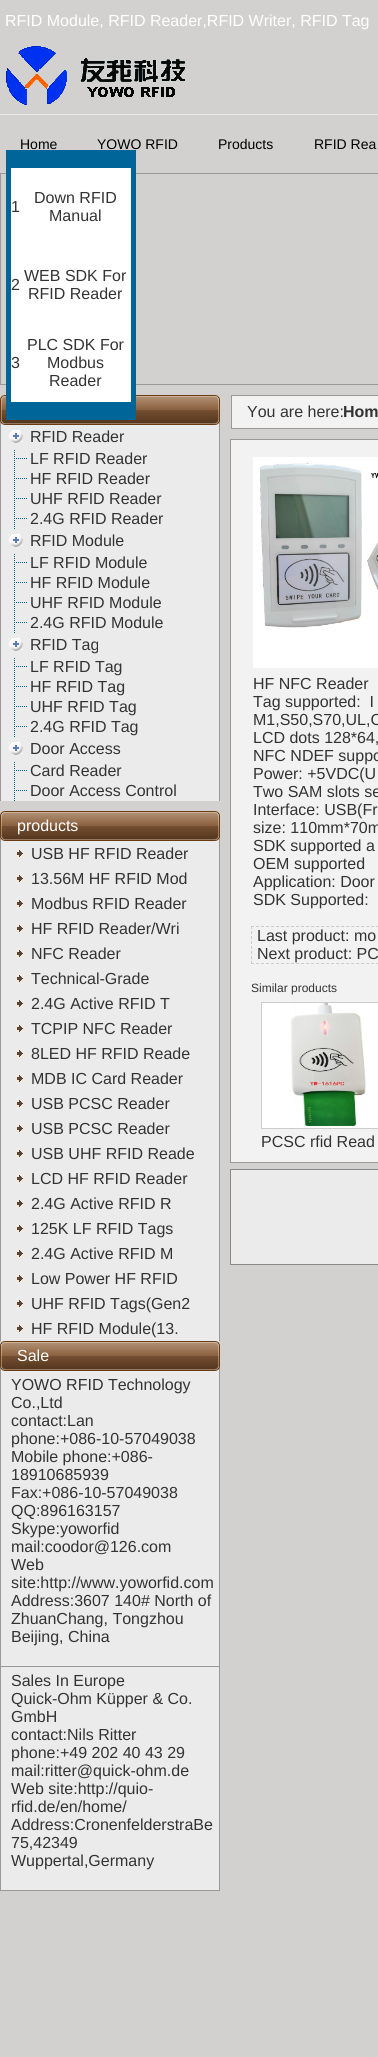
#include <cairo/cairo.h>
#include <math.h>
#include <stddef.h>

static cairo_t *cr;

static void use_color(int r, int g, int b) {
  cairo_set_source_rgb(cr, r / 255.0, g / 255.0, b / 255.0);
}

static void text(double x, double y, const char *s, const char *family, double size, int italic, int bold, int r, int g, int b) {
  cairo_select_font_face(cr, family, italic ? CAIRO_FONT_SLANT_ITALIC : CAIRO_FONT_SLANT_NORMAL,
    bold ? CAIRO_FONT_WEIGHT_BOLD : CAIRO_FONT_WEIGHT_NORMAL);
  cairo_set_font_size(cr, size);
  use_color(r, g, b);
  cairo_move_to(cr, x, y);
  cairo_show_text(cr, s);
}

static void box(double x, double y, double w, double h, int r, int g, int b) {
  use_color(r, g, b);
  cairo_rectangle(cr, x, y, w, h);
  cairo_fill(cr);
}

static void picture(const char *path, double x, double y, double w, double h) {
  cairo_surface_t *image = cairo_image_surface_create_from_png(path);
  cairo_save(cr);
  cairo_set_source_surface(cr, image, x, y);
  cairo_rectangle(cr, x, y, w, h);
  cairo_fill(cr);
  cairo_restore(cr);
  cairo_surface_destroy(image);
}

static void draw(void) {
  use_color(210, 209, 208);
  cairo_paint(cr);
  picture("img_01.png", 6, 46, 179, 59);
  box(0, 114, 378, 1, 233, 233, 233);
  cairo_rectangle(cr, 0.5, 173.5, 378, 211);
  use_color(153, 153, 153);
  cairo_set_line_width(cr, 1);
  cairo_stroke(cr);
  picture("img_04.png", 0, 395, 220, 30);
  box(6, 150, 130, 270, 0, 102, 153);
  box(11, 168, 120, 234, 255, 255, 255);
  use_color(242, 242, 242);
  cairo_rectangle(cr, 231.5, 395.5, 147, 33);
  cairo_fill_preserve(cr);
  use_color(153, 153, 153);
  cairo_stroke(cr);
  use_color(242, 242, 242);
  cairo_rectangle(cr, 230.5, 439.5, 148, 723);
  cairo_fill_preserve(cr);
  use_color(153, 153, 153);
  cairo_stroke(cr);
  picture("img_02.png", 253, 457, 125, 211);
  cairo_new_path(cr);
  cairo_move_to(cr, 251, 926.5);
  cairo_line_to(cr, 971, 926.5);
  use_color(204, 204, 204);
  cairo_set_dash(cr, (double[]){3, 2.01}, 2, 0);
  cairo_stroke(cr);
  cairo_new_path(cr);
  cairo_move_to(cr, 251, 963.5);
  cairo_line_to(cr, 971, 963.5);
  cairo_stroke(cr);
  cairo_new_path(cr);
  cairo_move_to(cr, 251.5, 926);
  cairo_line_to(cr, 251.5, 964);
  cairo_set_dash(cr, (double[]){3, 2}, 2, 0);
  cairo_stroke(cr);
  cairo_rectangle(cr, 261.5, 1002.5, 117, 126);
  cairo_set_dash(cr, NULL, 0, 0);
  cairo_stroke(cr);
  picture("img_03.png", 262, 1003, 116, 125);
  use_color(235, 235, 235);
  cairo_rectangle(cr, 230.5, 1169.5, 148, 95);
  cairo_fill_preserve(cr);
  use_color(136, 136, 136);
  cairo_stroke(cr);
  box(1, 425, 218, 376, 235, 235, 235);
  box(219, 425, 1, 376, 153, 153, 153);
  box(0, 425, 1, 376, 153, 153, 153);
  picture("img_05.png", 9, 430, 14, 13);
  picture("img_06.png", 14, 450, 13, 19);
  picture("img_06.png", 14, 470, 13, 19);
  picture("img_06.png", 14, 490, 13, 19);
  picture("img_06.png", 14, 510, 13, 19);
  picture("img_05.png", 9, 534, 14, 13);
  picture("img_06.png", 14, 554, 13, 19);
  picture("img_06.png", 14, 574, 13, 19);
  picture("img_06.png", 14, 594, 13, 19);
  picture("img_06.png", 14, 614, 13, 19);
  picture("img_05.png", 9, 638, 14, 13);
  picture("img_06.png", 14, 658, 13, 19);
  picture("img_06.png", 14, 678, 13, 19);
  picture("img_06.png", 14, 698, 13, 19);
  picture("img_06.png", 14, 718, 13, 19);
  picture("img_05.png", 9, 742, 14, 13);
  picture("img_06.png", 14, 762, 13, 19);
  picture("img_06.png", 14, 782, 13, 19);
  picture("img_04.png", 0, 811, 220, 30);
  box(1, 841, 218, 500, 235, 235, 235);
  box(219, 841, 1, 500, 153, 153, 153);
  box(0, 841, 1, 500, 153, 153, 153);
  picture("img_07.png", 16, 849, 8, 9);
  picture("img_07.png", 16, 874, 8, 9);
  picture("img_07.png", 16, 899, 8, 9);
  picture("img_07.png", 16, 924, 8, 9);
  picture("img_07.png", 16, 949, 8, 9);
  picture("img_07.png", 16, 974, 8, 9);
  picture("img_07.png", 16, 999, 8, 9);
  picture("img_07.png", 16, 1024, 8, 9);
  picture("img_07.png", 16, 1049, 8, 9);
  picture("img_07.png", 16, 1074, 8, 9);
  picture("img_07.png", 16, 1099, 8, 9);
  picture("img_07.png", 16, 1124, 8, 9);
  picture("img_07.png", 16, 1149, 8, 9);
  picture("img_07.png", 16, 1174, 8, 9);
  picture("img_07.png", 16, 1199, 8, 9);
  picture("img_07.png", 16, 1224, 8, 9);
  picture("img_07.png", 16, 1249, 8, 9);
  picture("img_07.png", 16, 1274, 8, 9);
  picture("img_07.png", 16, 1299, 8, 9);
  picture("img_07.png", 16, 1324, 8, 9);
  picture("img_04.png", 0, 1341, 220, 30);
  box(1, 1371, 218, 295, 235, 235, 235);
  box(219, 1371, 1, 520, 153, 153, 153);
  box(0, 1666, 220, 1, 153, 153, 153);
  box(0, 1371, 1, 296, 153, 153, 153);
  box(1, 1667, 218, 223, 235, 235, 235);
  box(0, 1890, 220, 1, 153, 153, 153);
  box(0, 1667, 1, 224, 153, 153, 153);
  text(5, 26, "RFID Module, RFID Reader,RFID Writer, RFID Tag", "Liberation Sans", 16, 0, 0, 255, 255, 255);
  text(20, 149, "Home", "Liberation Sans", 14, 0, 0, 0, 0, 0);
  text(97, 149, "YOWO RFID", "Liberation Sans", 14, 0, 0, 0, 0, 0);
  text(218, 149, "Products", "Liberation Sans", 14, 0, 0, 0, 0, 0);
  text(314, 149, "RFID Rea", "Liberation Sans", 14, 0, 0, 0, 0, 0);
  text(11, 212, "1", "Liberation Sans", 16, 0, 0, 51, 51, 51);
  text(34, 203, "Down RFID", "Liberation Sans", 16, 0, 0, 51, 51, 51);
  text(49, 221, "Manual", "Liberation Sans", 16, 0, 0, 51, 51, 51);
  text(11, 290, "2", "Liberation Sans", 16, 0, 0, 51, 51, 51);
  text(24, 281, "WEB SDK For", "Liberation Sans", 16, 0, 0, 51, 51, 51);
  text(28, 299, "RFID Reader", "Liberation Sans", 16, 0, 0, 51, 51, 51);
  text(11, 368, "3", "Liberation Sans", 16, 0, 0, 51, 51, 51);
  text(27, 350, "PLC SDK For", "Liberation Sans", 16, 0, 0, 51, 51, 51);
  text(47, 368, "Modbus", "Liberation Sans", 16, 0, 0, 51, 51, 51);
  text(49, 386, "Reader", "Liberation Sans", 16, 0, 0, 51, 51, 51);
  text(247, 417, "You are here:", "Liberation Sans", 16, 0, 0, 51, 51, 51);
  text(343, 417, "Hom", "Liberation Sans", 16, 0, 1, 51, 51, 51);
  text(253, 689, "HF NFC Reader", "Liberation Sans", 16, 0, 0, 51, 51, 51);
  text(253, 707, "Tag supported:  I", "Liberation Sans", 16, 0, 0, 51, 51, 51);
  text(253, 725, "M1,S50,S70,UL,C", "Liberation Sans", 16, 0, 0, 51, 51, 51);
  text(253, 743, "LCD dots 128*64,", "Liberation Sans", 16, 0, 0, 51, 51, 51);
  text(253, 761, "NFC NDEF suppo", "Liberation Sans", 16, 0, 0, 51, 51, 51);
  text(253, 779, "Power: +5VDC(U", "Liberation Sans", 16, 0, 0, 51, 51, 51);
  text(253, 797, "Two SAM slots se", "Liberation Sans", 16, 0, 0, 51, 51, 51);
  text(253, 815, "Interface: USB(Fr", "Liberation Sans", 16, 0, 0, 51, 51, 51);
  text(253, 833, "size: 110mm*70m", "Liberation Sans", 16, 0, 0, 51, 51, 51);
  text(253, 851, "SDK supported a", "Liberation Sans", 16, 0, 0, 51, 51, 51);
  text(253, 869, "OEM supported", "Liberation Sans", 16, 0, 0, 51, 51, 51);
  text(253, 887, "Application: Door", "Liberation Sans", 16, 0, 0, 51, 51, 51);
  text(253, 905, "SDK Supported:", "Liberation Sans", 16, 0, 0, 51, 51, 51);
  text(257, 941, "Last product: mo", "Liberation Sans", 16, 0, 0, 51, 51, 51);
  text(257, 959, "Next product: PC", "Liberation Sans", 16, 0, 0, 51, 51, 51);
  text(251, 992, "Similar products", "Liberation Sans", 12, 0, 0, 51, 51, 51);
  text(261, 1147, "PCSC rfid Read", "Liberation Sans", 16, 0, 0, 51, 51, 51);
  text(30, 442, "RFID Reader", "Liberation Sans", 16, 0, 0, 51, 51, 51);
  text(30, 464, "LF RFID Reader", "Liberation Sans", 16, 0, 0, 51, 51, 51);
  text(30, 484, "HF RFID Reader", "Liberation Sans", 16, 0, 0, 51, 51, 51);
  text(30, 504, "UHF RFID Reader", "Liberation Sans", 16, 0, 0, 51, 51, 51);
  text(30, 524, "2.4G RFID Reader", "Liberation Sans", 16, 0, 0, 51, 51, 51);
  text(30, 546, "RFID Module", "Liberation Sans", 16, 0, 0, 51, 51, 51);
  text(30, 568, "LF RFID Module", "Liberation Sans", 16, 0, 0, 51, 51, 51);
  text(30, 588, "HF RFID Module", "Liberation Sans", 16, 0, 0, 51, 51, 51);
  text(30, 608, "UHF RFID Module", "Liberation Sans", 16, 0, 0, 51, 51, 51);
  text(30, 628, "2.4G RFID Module", "Liberation Sans", 16, 0, 0, 51, 51, 51);
  text(30, 650, "RFID Tag", "Liberation Sans", 16, 0, 0, 51, 51, 51);
  text(30, 672, "LF RFID Tag", "Liberation Sans", 16, 0, 0, 51, 51, 51);
  text(30, 692, "HF RFID Tag", "Liberation Sans", 16, 0, 0, 51, 51, 51);
  text(30, 712, "UHF RFID Tag", "Liberation Sans", 16, 0, 0, 51, 51, 51);
  text(30, 732, "2.4G RFID Tag", "Liberation Sans", 16, 0, 0, 51, 51, 51);
  text(30, 754, "Door Access", "Liberation Sans", 16, 0, 0, 51, 51, 51);
  text(30, 776, "Card Reader", "Liberation Sans", 16, 0, 0, 51, 51, 51);
  text(30, 796, "Door Access Control", "Liberation Sans", 16, 0, 0, 51, 51, 51);
  text(17, 831, "products", "Liberation Sans", 16, 0, 0, 255, 255, 255);
  text(31, 859, "USB HF RFID Reader", "Liberation Sans", 16, 0, 0, 51, 51, 51);
  text(31, 884, "13.56M HF RFID Mod", "Liberation Sans", 16, 0, 0, 51, 51, 51);
  text(31, 909, "Modbus RFID Reader", "Liberation Sans", 16, 0, 0, 51, 51, 51);
  text(31, 934, "HF RFID Reader/Wri", "Liberation Sans", 16, 0, 0, 51, 51, 51);
  text(31, 959, "NFC Reader", "Liberation Sans", 16, 0, 0, 51, 51, 51);
  text(31, 984, "Technical-Grade", "Liberation Sans", 16, 0, 0, 51, 51, 51);
  text(31, 1009, "2.4G Active RFID T", "Liberation Sans", 16, 0, 0, 51, 51, 51);
  text(31, 1034, "TCPIP NFC Reader", "Liberation Sans", 16, 0, 0, 51, 51, 51);
  text(31, 1059, "8LED HF RFID Reade", "Liberation Sans", 16, 0, 0, 51, 51, 51);
  text(31, 1084, "MDB IC Card Reader", "Liberation Sans", 16, 0, 0, 51, 51, 51);
  text(31, 1109, "USB PCSC Reader", "Liberation Sans", 16, 0, 0, 51, 51, 51);
  text(31, 1134, "USB PCSC Reader", "Liberation Sans", 16, 0, 0, 51, 51, 51);
  text(31, 1159, "USB UHF RFID Reade", "Liberation Sans", 16, 0, 0, 51, 51, 51);
  text(31, 1184, "LCD HF RFID Reader", "Liberation Sans", 16, 0, 0, 51, 51, 51);
  text(31, 1209, "2.4G Active RFID R", "Liberation Sans", 16, 0, 0, 51, 51, 51);
  text(31, 1234, "125K LF RFID Tags", "Liberation Sans", 16, 0, 0, 51, 51, 51);
  text(31, 1259, "2.4G Active RFID M", "Liberation Sans", 16, 0, 0, 51, 51, 51);
  text(31, 1284, "Low Power HF RFID", "Liberation Sans", 16, 0, 0, 51, 51, 51);
  text(31, 1309, "UHF RFID Tags(Gen2", "Liberation Sans", 16, 0, 0, 51, 51, 51);
  text(31, 1334, "HF RFID Module(13.", "Liberation Sans", 16, 0, 0, 51, 51, 51);
  text(17, 1361, "Sale", "Liberation Sans", 16, 0, 0, 255, 255, 255);
  text(11, 1390, "YOWO RFID Technology", "Liberation Sans", 16, 0, 0, 51, 51, 51);
  text(11, 1408, "Co.,Ltd", "Liberation Sans", 16, 0, 0, 51, 51, 51);
  text(11, 1426, "contact:Lan", "Liberation Sans", 16, 0, 0, 51, 51, 51);
  text(11, 1444, "phone:+086-10-57049038", "Liberation Sans", 16, 0, 0, 51, 51, 51);
  text(11, 1462, "Mobile phone:+086-", "Liberation Sans", 16, 0, 0, 51, 51, 51);
  text(11, 1480, "18910685939", "Liberation Sans", 16, 0, 0, 51, 51, 51);
  text(11, 1498, "Fax:+086-10-57049038", "Liberation Sans", 16, 0, 0, 51, 51, 51);
  text(11, 1516, "QQ:896163157", "Liberation Sans", 16, 0, 0, 51, 51, 51);
  text(11, 1534, "Skype:yoworfid", "Liberation Sans", 16, 0, 0, 51, 51, 51);
  text(11, 1552, "mail:coodor@126.com", "Liberation Sans", 16, 0, 0, 51, 51, 51);
  text(11, 1570, "Web", "Liberation Sans", 16, 0, 0, 51, 51, 51);
  text(11, 1588, "site:http://www.yoworfid.com", "Liberation Sans", 16, 0, 0, 51, 51, 51);
  text(11, 1606, "Address:3607 140# North of", "Liberation Sans", 16, 0, 0, 51, 51, 51);
  text(11, 1624, "ZhuanChang, Tongzhou", "Liberation Sans", 16, 0, 0, 51, 51, 51);
  text(11, 1642, "Beijing, China", "Liberation Sans", 16, 0, 0, 51, 51, 51);
  text(11, 1686, "Sales In Europe", "Liberation Sans", 16, 0, 0, 51, 51, 51);
  text(11, 1704, "Quick-Ohm Küpper & Co.", "Liberation Sans", 16, 0, 0, 51, 51, 51);
  text(11, 1722, "GmbH", "Liberation Sans", 16, 0, 0, 51, 51, 51);
  text(11, 1740, "contact:Nils Ritter", "Liberation Sans", 16, 0, 0, 51, 51, 51);
  text(11, 1758, "phone:+49 202 40 43 29", "Liberation Sans", 16, 0, 0, 51, 51, 51);
  text(11, 1776, "mail:ritter@quick-ohm.de", "Liberation Sans", 16, 0, 0, 51, 51, 51);
  text(11, 1794, "Web site:http://quio-", "Liberation Sans", 16, 0, 0, 51, 51, 51);
  text(11, 1812, "rfid.de/en/home/", "Liberation Sans", 16, 0, 0, 51, 51, 51);
  text(11, 1830, "Address:CronenfelderstraBe", "Liberation Sans", 16, 0, 0, 51, 51, 51);
  text(11, 1848, "75,42349", "Liberation Sans", 16, 0, 0, 51, 51, 51);
  text(11, 1866, "Wuppertal,Germany", "Liberation Sans", 16, 0, 0, 51, 51, 51);
}

int main(void) {
  cairo_surface_t *surface = cairo_image_surface_create(CAIRO_FORMAT_RGB24, 378, 2057);
  cr = cairo_create(surface);
  cairo_font_options_t *options = cairo_font_options_create();
  cairo_font_options_set_hint_metrics(options, CAIRO_HINT_METRICS_OFF);
  cairo_font_options_set_hint_style(options, CAIRO_HINT_STYLE_NONE);
  cairo_set_font_options(cr, options);
  cairo_set_miter_limit(cr, 4);
  draw();
  cairo_surface_write_to_png(surface, "out.png");
  cairo_font_options_destroy(options);
  cairo_destroy(cr);
  cairo_surface_destroy(surface);
  return 0;
}
